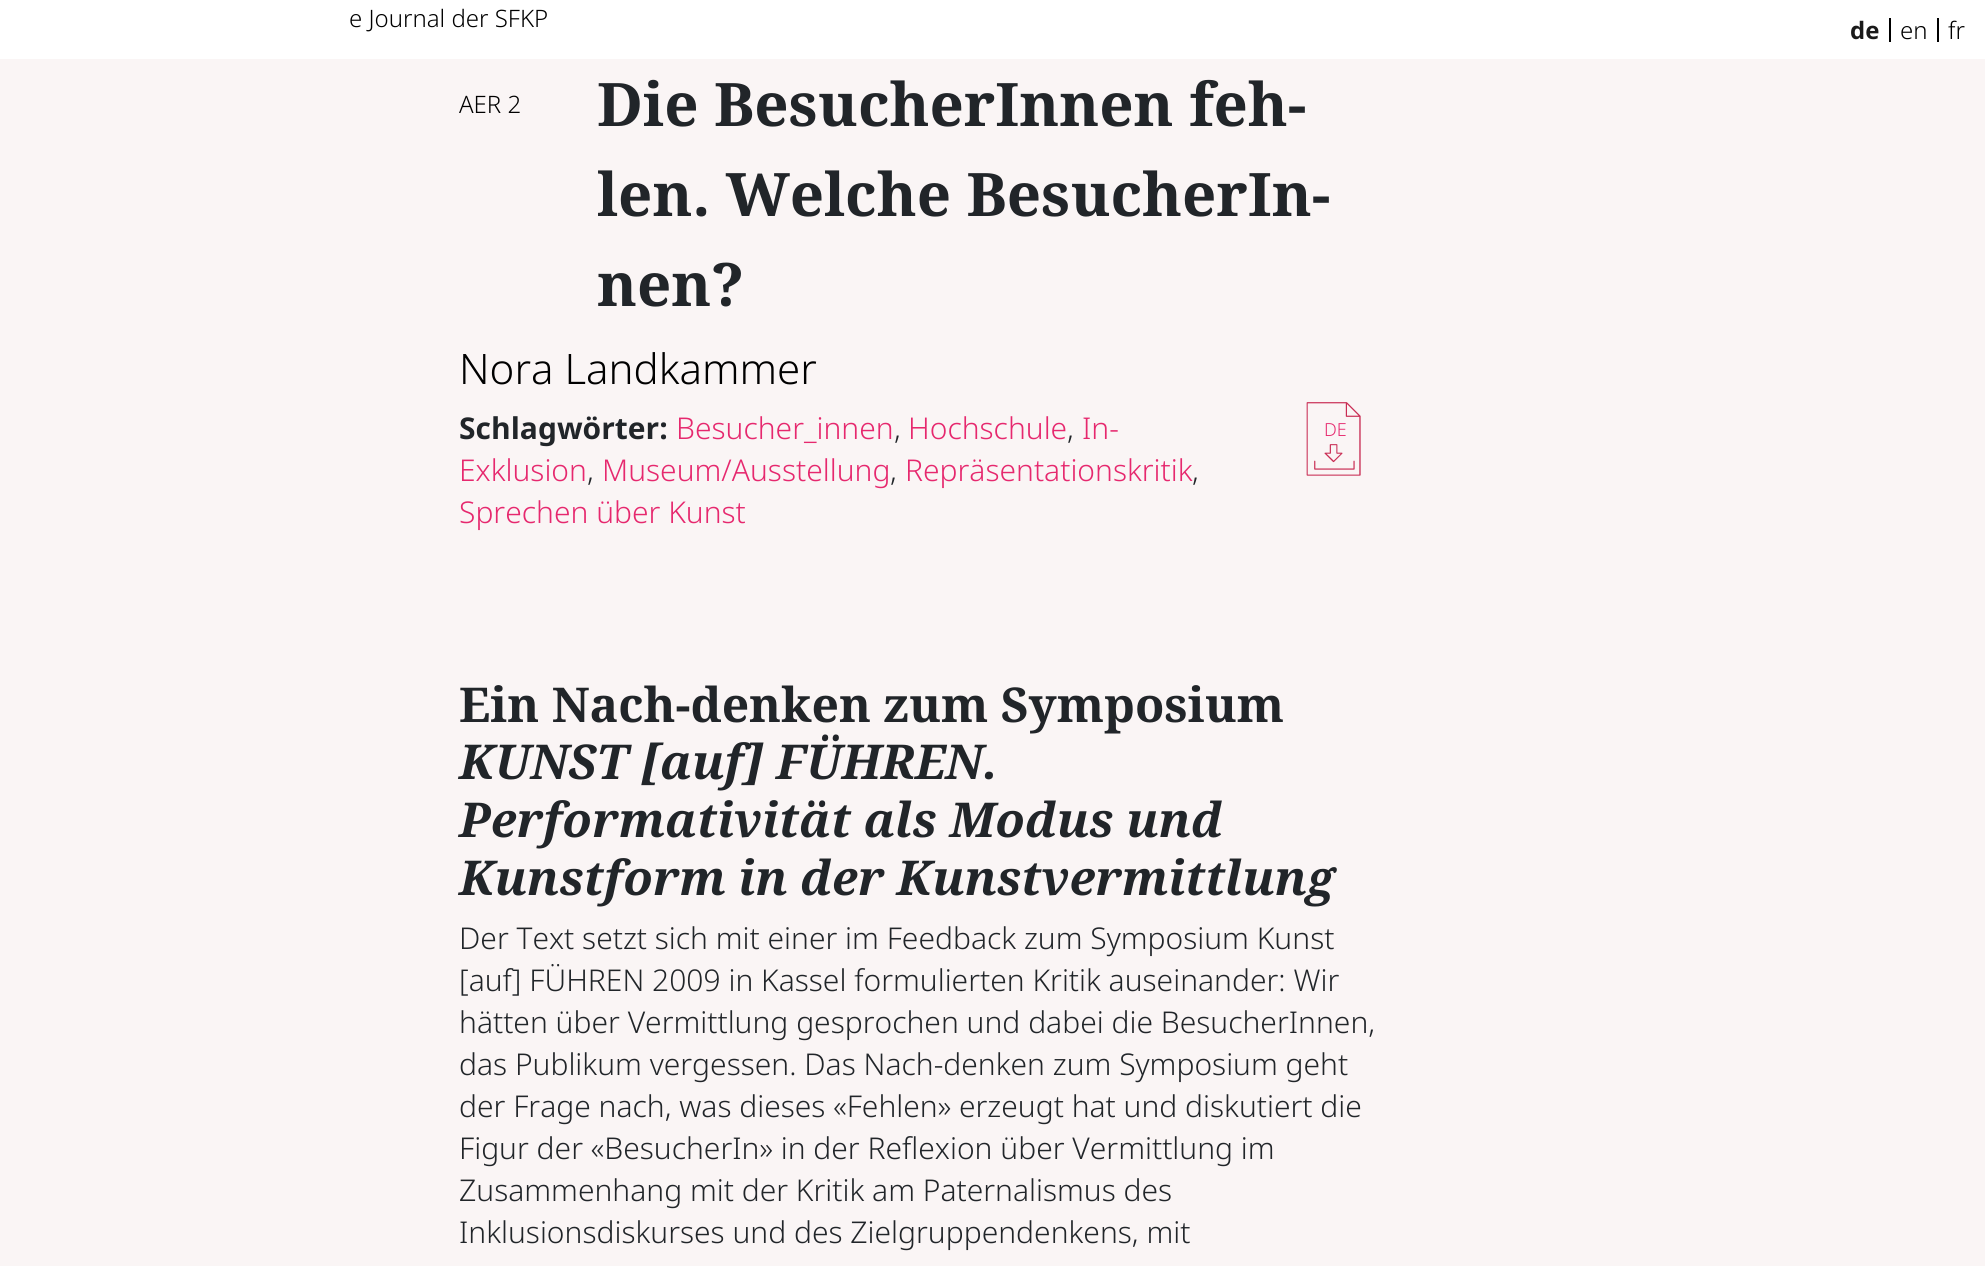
#include <cairo/cairo.h>
#include <math.h>
#include <stddef.h>


static void draw_image(cairo_t *cr, const char *path, double x, double y, double w, double h) {
  cairo_surface_t *image = cairo_image_surface_create_from_png(path);
  cairo_save(cr);
  cairo_set_source_surface(cr, image, x, y);
  cairo_rectangle(cr, x, y, w, h);
  cairo_fill(cr);
  cairo_restore(cr);
  cairo_surface_destroy(image);
}

static void draw(cairo_t *cr) {
  cairo_set_source_rgb(cr, 1, 1, 1);
  cairo_paint(cr);
  cairo_set_source_rgb(cr, 0, 0, 0);
  cairo_rectangle(cr, 1889, 18, 2, 24);
  cairo_fill(cr);
  cairo_rectangle(cr, 1937, 18, 2, 24);
  cairo_fill(cr);
  cairo_set_source_rgb(cr, 250 / 255.0, 245 / 255.0, 245 / 255.0);
  cairo_rectangle(cr, 0, 59, 1985, 1207);
  cairo_fill(cr);
  draw_image(cr, "images/1.png", 1306, 402, 55, 74);
  cairo_select_font_face(cr, "Noto Sans Light", CAIRO_FONT_SLANT_NORMAL, CAIRO_FONT_WEIGHT_NORMAL);
  cairo_set_font_size(cr, 24);
  cairo_set_source_rgb(cr, 0, 0, 0);
  cairo_move_to(cr, 349, 27);
  cairo_show_text(cr, "e Journal der SFKP");
  cairo_select_font_face(cr, "Noto Sans", CAIRO_FONT_SLANT_NORMAL, CAIRO_FONT_WEIGHT_BOLD);
  cairo_set_source_rgb(cr, 26 / 255.0, 26 / 255.0, 26 / 255.0);
  cairo_move_to(cr, 1850, 39);
  cairo_show_text(cr, "de");
  cairo_select_font_face(cr, "Noto Sans Light", CAIRO_FONT_SLANT_NORMAL, CAIRO_FONT_WEIGHT_NORMAL);
  cairo_set_source_rgb(cr, 0, 0, 0);
  cairo_move_to(cr, 1900, 39);
  cairo_show_text(cr, "en");
  cairo_move_to(cr, 1948, 39);
  cairo_show_text(cr, "fr");
  cairo_move_to(cr, 459, 113);
  cairo_show_text(cr, "AER 2");
  cairo_select_font_face(cr, "Noto Serif", CAIRO_FONT_SLANT_NORMAL, CAIRO_FONT_WEIGHT_BOLD);
  cairo_set_font_size(cr, 60);
  cairo_set_source_rgb(cr, 33 / 255.0, 37 / 255.0, 41 / 255.0);
  cairo_move_to(cr, 597, 126);
  cairo_show_text(cr, "Die BesucherInnen feh-");
  cairo_move_to(cr, 597, 216);
  cairo_show_text(cr, "len. Welche BesucherIn-");
  cairo_move_to(cr, 597, 306);
  cairo_show_text(cr, "nen?");
  cairo_select_font_face(cr, "Noto Sans Light", CAIRO_FONT_SLANT_NORMAL, CAIRO_FONT_WEIGHT_NORMAL);
  cairo_set_font_size(cr, 42);
  cairo_set_source_rgb(cr, 0, 0, 0);
  cairo_move_to(cr, 459, 384);
  cairo_show_text(cr, "Nora Landkammer");
  cairo_select_font_face(cr, "Noto Sans", CAIRO_FONT_SLANT_NORMAL, CAIRO_FONT_WEIGHT_BOLD);
  cairo_set_font_size(cr, 30);
  cairo_set_source_rgb(cr, 33 / 255.0, 37 / 255.0, 41 / 255.0);
  cairo_move_to(cr, 459, 439);
  cairo_show_text(cr, "Schlagwörter:");
  cairo_select_font_face(cr, "Noto Sans Light", CAIRO_FONT_SLANT_NORMAL, CAIRO_FONT_WEIGHT_NORMAL);
  cairo_set_source_rgb(cr, 230 / 255.0, 40 / 255.0, 110 / 255.0);
  cairo_move_to(cr, 676, 439);
  cairo_show_text(cr, "Besucher_innen");
  cairo_set_source_rgb(cr, 33 / 255.0, 37 / 255.0, 41 / 255.0);
  cairo_move_to(cr, 894, 439);
  cairo_show_text(cr, ",");
  cairo_set_source_rgb(cr, 230 / 255.0, 40 / 255.0, 110 / 255.0);
  cairo_move_to(cr, 908, 439);
  cairo_show_text(cr, "Hochschule");
  cairo_set_source_rgb(cr, 33 / 255.0, 37 / 255.0, 41 / 255.0);
  cairo_move_to(cr, 1067, 439);
  cairo_show_text(cr, ",");
  cairo_set_source_rgb(cr, 230 / 255.0, 40 / 255.0, 110 / 255.0);
  cairo_move_to(cr, 1082, 439);
  cairo_show_text(cr, "In-");
  cairo_move_to(cr, 459, 481);
  cairo_show_text(cr, "Exklusion");
  cairo_set_source_rgb(cr, 33 / 255.0, 37 / 255.0, 41 / 255.0);
  cairo_move_to(cr, 587, 481);
  cairo_show_text(cr, ",");
  cairo_set_source_rgb(cr, 230 / 255.0, 40 / 255.0, 110 / 255.0);
  cairo_move_to(cr, 602, 481);
  cairo_show_text(cr, "Museum/Ausstellung");
  cairo_set_source_rgb(cr, 33 / 255.0, 37 / 255.0, 41 / 255.0);
  cairo_move_to(cr, 890, 481);
  cairo_show_text(cr, ",");
  cairo_set_source_rgb(cr, 230 / 255.0, 40 / 255.0, 110 / 255.0);
  cairo_move_to(cr, 905, 481);
  cairo_show_text(cr, "Repräsentationskritik");
  cairo_set_source_rgb(cr, 33 / 255.0, 37 / 255.0, 41 / 255.0);
  cairo_move_to(cr, 1192, 481);
  cairo_show_text(cr, ",");
  cairo_set_source_rgb(cr, 230 / 255.0, 40 / 255.0, 110 / 255.0);
  cairo_move_to(cr, 459, 523);
  cairo_show_text(cr, "Sprechen über Kunst");
  cairo_set_font_size(cr, 18);
  cairo_move_to(cr, 1324, 436);
  cairo_show_text(cr, "DE");
  cairo_select_font_face(cr, "Noto Serif", CAIRO_FONT_SLANT_NORMAL, CAIRO_FONT_WEIGHT_BOLD);
  cairo_set_font_size(cr, 48);
  cairo_set_source_rgb(cr, 33 / 255.0, 37 / 255.0, 41 / 255.0);
  cairo_move_to(cr, 459, 722);
  cairo_show_text(cr, "Ein Nach-denken zum Symposium");
  cairo_select_font_face(cr, "Noto Serif", CAIRO_FONT_SLANT_ITALIC, CAIRO_FONT_WEIGHT_BOLD);
  cairo_move_to(cr, 459, 779);
  cairo_show_text(cr, "KUNST [auf] FÜHREN.");
  cairo_move_to(cr, 459, 837);
  cairo_show_text(cr, "Performativität als Modus und");
  cairo_move_to(cr, 459, 895);
  cairo_show_text(cr, "Kunstform in der Kunstvermittlung");
  cairo_select_font_face(cr, "Noto Sans Light", CAIRO_FONT_SLANT_NORMAL, CAIRO_FONT_WEIGHT_NORMAL);
  cairo_set_font_size(cr, 30);
  cairo_move_to(cr, 459, 949);
  cairo_show_text(cr, "Der Text setzt sich mit einer im Feedback zum Symposium Kunst");
  cairo_move_to(cr, 459, 991);
  cairo_show_text(cr, "[auf] FÜHREN 2009 in Kassel formulierten Kritik auseinander: Wir");
  cairo_move_to(cr, 459, 1033);
  cairo_show_text(cr, "hätten über Vermittlung gesprochen und dabei die BesucherInnen,");
  cairo_move_to(cr, 459, 1075);
  cairo_show_text(cr, "das Publikum vergessen. Das Nach-denken zum Symposium geht");
  cairo_move_to(cr, 459, 1117);
  cairo_show_text(cr, "der Frage nach, was dieses «Fehlen» erzeugt hat und diskutiert die");
  cairo_move_to(cr, 459, 1159);
  cairo_show_text(cr, "Figur der «BesucherIn» in der Reflexion über Vermittlung im");
  cairo_move_to(cr, 459, 1201);
  cairo_show_text(cr, "Zusammenhang mit der Kritik am Paternalismus des");
  cairo_move_to(cr, 459, 1243);
  cairo_show_text(cr, "Inklusionsdiskurses und des Zielgruppendenkens, mit");
}

int main(void) {
  cairo_surface_t *surface = cairo_image_surface_create(CAIRO_FORMAT_RGB24, 1985, 1266);
  cairo_t *cr = cairo_create(surface);
  cairo_font_options_t *options = cairo_font_options_create();
  cairo_font_options_set_hint_metrics(options, CAIRO_HINT_METRICS_OFF);
  cairo_font_options_set_hint_style(options, CAIRO_HINT_STYLE_NONE);
  cairo_set_font_options(cr, options);
  cairo_set_miter_limit(cr, 4);
  draw(cr);
  cairo_surface_write_to_png(surface, "out.png");
  cairo_font_options_destroy(options);
  cairo_destroy(cr);
  cairo_surface_destroy(surface);
  return 0;
}
